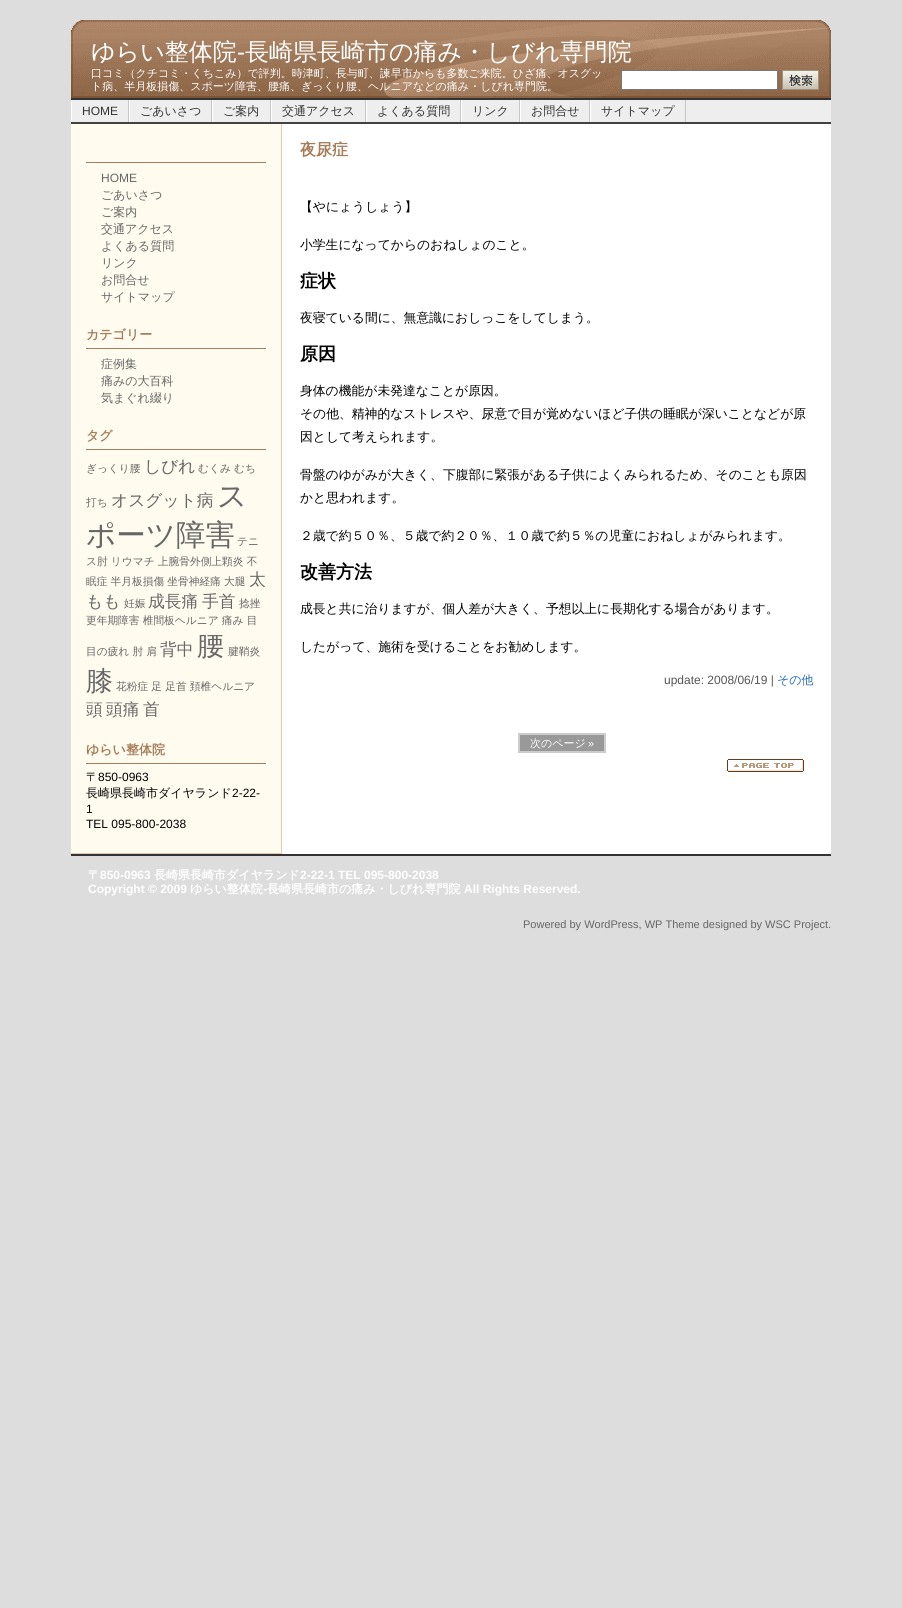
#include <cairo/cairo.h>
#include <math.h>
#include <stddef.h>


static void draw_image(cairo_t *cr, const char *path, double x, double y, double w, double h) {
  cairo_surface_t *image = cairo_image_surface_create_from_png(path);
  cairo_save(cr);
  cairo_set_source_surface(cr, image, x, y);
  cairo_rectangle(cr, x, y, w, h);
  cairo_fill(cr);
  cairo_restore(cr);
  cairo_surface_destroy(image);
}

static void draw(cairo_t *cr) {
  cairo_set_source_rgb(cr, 221 / 255.0, 221 / 255.0, 221 / 255.0);
  cairo_paint(cr);
  draw_image(cr, "images/1.png", 71, 20, 760, 78);
  cairo_set_source_rgb(cr, 51 / 255.0, 51 / 255.0, 51 / 255.0);
  cairo_rectangle(cr, 71, 98, 760, 2);
  cairo_fill(cr);
  cairo_set_source_rgb(cr, 1, 1, 1);
  cairo_rectangle(cr, 621.5, 70.5, 156, 19);
  cairo_fill_preserve(cr);
  cairo_set_source_rgb(cr, 119 / 255.0, 119 / 255.0, 119 / 255.0);
  cairo_set_line_width(cr, 1);
  cairo_stroke(cr);
  draw_image(cr, "images/2.png", 782, 70, 37, 20);
  cairo_set_source_rgb(cr, 238 / 255.0, 238 / 255.0, 238 / 255.0);
  cairo_rectangle(cr, 72, 100, 759, 22);
  cairo_fill(cr);
  cairo_set_source_rgb(cr, 66 / 255.0, 66 / 255.0, 66 / 255.0);
  cairo_rectangle(cr, 71, 122, 760, 2);
  cairo_fill(cr);
  cairo_set_source_rgb(cr, 199 / 255.0, 199 / 255.0, 199 / 255.0);
  cairo_rectangle(cr, 128, 100, 1, 22);
  cairo_fill(cr);
  cairo_set_source_rgb(cr, 1, 1, 1);
  cairo_rectangle(cr, 71, 100, 1, 22);
  cairo_fill(cr);
  cairo_set_source_rgb(cr, 199 / 255.0, 199 / 255.0, 199 / 255.0);
  cairo_rectangle(cr, 211, 100, 1, 22);
  cairo_fill(cr);
  cairo_set_source_rgb(cr, 1, 1, 1);
  cairo_rectangle(cr, 129, 100, 1, 22);
  cairo_fill(cr);
  cairo_set_source_rgb(cr, 199 / 255.0, 199 / 255.0, 199 / 255.0);
  cairo_rectangle(cr, 270, 100, 1, 22);
  cairo_fill(cr);
  cairo_set_source_rgb(cr, 1, 1, 1);
  cairo_rectangle(cr, 212, 100, 1, 22);
  cairo_fill(cr);
  cairo_set_source_rgb(cr, 199 / 255.0, 199 / 255.0, 199 / 255.0);
  cairo_rectangle(cr, 365, 100, 1, 22);
  cairo_fill(cr);
  cairo_set_source_rgb(cr, 1, 1, 1);
  cairo_rectangle(cr, 271, 100, 1, 22);
  cairo_fill(cr);
  cairo_set_source_rgb(cr, 199 / 255.0, 199 / 255.0, 199 / 255.0);
  cairo_rectangle(cr, 460, 100, 1, 22);
  cairo_fill(cr);
  cairo_set_source_rgb(cr, 1, 1, 1);
  cairo_rectangle(cr, 366, 100, 1, 22);
  cairo_fill(cr);
  cairo_set_source_rgb(cr, 199 / 255.0, 199 / 255.0, 199 / 255.0);
  cairo_rectangle(cr, 519, 100, 1, 22);
  cairo_fill(cr);
  cairo_set_source_rgb(cr, 1, 1, 1);
  cairo_rectangle(cr, 461, 100, 1, 22);
  cairo_fill(cr);
  cairo_set_source_rgb(cr, 199 / 255.0, 199 / 255.0, 199 / 255.0);
  cairo_rectangle(cr, 589, 100, 1, 22);
  cairo_fill(cr);
  cairo_set_source_rgb(cr, 1, 1, 1);
  cairo_rectangle(cr, 520, 100, 1, 22);
  cairo_fill(cr);
  cairo_set_source_rgb(cr, 199 / 255.0, 199 / 255.0, 199 / 255.0);
  cairo_rectangle(cr, 685, 100, 1, 22);
  cairo_fill(cr);
  cairo_set_source_rgb(cr, 1, 1, 1);
  cairo_rectangle(cr, 590, 100, 1, 22);
  cairo_fill(cr);
  cairo_rectangle(cr, 282, 124, 549, 730);
  cairo_fill(cr);
  cairo_set_source_rgb(cr, 1, 251 / 255.0, 239 / 255.0);
  cairo_rectangle(cr, 71, 124, 210, 729);
  cairo_fill(cr);
  cairo_set_source_rgb(cr, 231 / 255.0, 199 / 255.0, 173 / 255.0);
  cairo_rectangle(cr, 281, 124, 1, 730);
  cairo_fill(cr);
  cairo_rectangle(cr, 71, 853, 211, 1);
  cairo_fill(cr);
  cairo_set_source_rgb(cr, 165 / 255.0, 125 / 255.0, 90 / 255.0);
  cairo_rectangle(cr, 86, 162, 180, 1);
  cairo_fill(cr);
  cairo_rectangle(cr, 86, 348, 180, 1);
  cairo_fill(cr);
  cairo_rectangle(cr, 86, 449, 180, 1);
  cairo_fill(cr);
  cairo_rectangle(cr, 86, 763, 180, 1);
  cairo_fill(cr);
  cairo_set_source_rgb(cr, 153 / 255.0, 153 / 255.0, 153 / 255.0);
  cairo_rectangle(cr, 519, 734, 86, 18);
  cairo_fill_preserve(cr);
  cairo_set_source_rgb(cr, 204 / 255.0, 204 / 255.0, 204 / 255.0);
  cairo_set_line_width(cr, 2);
  cairo_stroke(cr);
  draw_image(cr, "images/3.png", 727, 759, 77, 13);
  cairo_set_source_rgb(cr, 51 / 255.0, 51 / 255.0, 51 / 255.0);
  cairo_rectangle(cr, 71, 854, 760, 2);
  cairo_fill(cr);
  cairo_select_font_face(cr, "WenQuanYi Zen Hei Medium", CAIRO_FONT_SLANT_NORMAL, CAIRO_FONT_WEIGHT_NORMAL);
  cairo_set_font_size(cr, 24);
  cairo_set_source_rgb(cr, 1, 1, 1);
  cairo_move_to(cr, 91, 60);
  cairo_show_text(cr, "ゆらい整体院");
  cairo_select_font_face(cr, "Liberation Sans", CAIRO_FONT_SLANT_NORMAL, CAIRO_FONT_WEIGHT_NORMAL);
  cairo_move_to(cr, 237, 60);
  cairo_show_text(cr, "-");
  cairo_select_font_face(cr, "WenQuanYi Zen Hei Medium", CAIRO_FONT_SLANT_NORMAL, CAIRO_FONT_WEIGHT_NORMAL);
  cairo_move_to(cr, 245, 60);
  cairo_show_text(cr, "長崎県長崎市の痛み・しびれ専門院");
  cairo_set_font_size(cr, 11);
  cairo_move_to(cr, 91, 77);
  cairo_show_text(cr, "口コミ（クチコミ・くちこみ）で評判。時津町、長与町、諫早市からも多数ご来院。ひざ痛、オスグッ");
  cairo_move_to(cr, 91, 90);
  cairo_show_text(cr, "ト病、半月板損傷、スポーツ障害、腰痛、ぎっくり腰、ヘルニアなどの痛み・しびれ専門院。");
  cairo_select_font_face(cr, "Liberation Sans", CAIRO_FONT_SLANT_NORMAL, CAIRO_FONT_WEIGHT_NORMAL);
  cairo_set_font_size(cr, 12);
  cairo_set_source_rgb(cr, 51 / 255.0, 51 / 255.0, 51 / 255.0);
  cairo_move_to(cr, 82, 115);
  cairo_show_text(cr, "HOME");
  cairo_select_font_face(cr, "WenQuanYi Zen Hei Medium", CAIRO_FONT_SLANT_NORMAL, CAIRO_FONT_WEIGHT_NORMAL);
  cairo_move_to(cr, 140, 115);
  cairo_show_text(cr, "ごあいさつ");
  cairo_move_to(cr, 223, 115);
  cairo_show_text(cr, "ご案内");
  cairo_move_to(cr, 282, 115);
  cairo_show_text(cr, "交通アクセス");
  cairo_move_to(cr, 377, 115);
  cairo_show_text(cr, "よくある質問");
  cairo_move_to(cr, 472, 115);
  cairo_show_text(cr, "リンク");
  cairo_move_to(cr, 531, 115);
  cairo_show_text(cr, "お問合せ");
  cairo_move_to(cr, 601, 115);
  cairo_show_text(cr, "サイトマップ");
  cairo_select_font_face(cr, "Liberation Sans", CAIRO_FONT_SLANT_NORMAL, CAIRO_FONT_WEIGHT_NORMAL);
  cairo_set_source_rgb(cr, 102 / 255.0, 102 / 255.0, 102 / 255.0);
  cairo_move_to(cr, 101, 182);
  cairo_show_text(cr, "HOME");
  cairo_select_font_face(cr, "WenQuanYi Zen Hei Medium", CAIRO_FONT_SLANT_NORMAL, CAIRO_FONT_WEIGHT_NORMAL);
  cairo_move_to(cr, 101, 199);
  cairo_show_text(cr, "ごあいさつ");
  cairo_move_to(cr, 101, 216);
  cairo_show_text(cr, "ご案内");
  cairo_move_to(cr, 101, 233);
  cairo_show_text(cr, "交通アクセス");
  cairo_move_to(cr, 101, 250);
  cairo_show_text(cr, "よくある質問");
  cairo_move_to(cr, 101, 267);
  cairo_show_text(cr, "リンク");
  cairo_move_to(cr, 101, 284);
  cairo_show_text(cr, "お問合せ");
  cairo_move_to(cr, 101, 301);
  cairo_show_text(cr, "サイトマップ");
  cairo_select_font_face(cr, "WenQuanYi Zen Hei", CAIRO_FONT_SLANT_NORMAL, CAIRO_FONT_WEIGHT_BOLD);
  cairo_set_font_size(cr, 13);
  cairo_set_source_rgb(cr, 165 / 255.0, 125 / 255.0, 90 / 255.0);
  cairo_move_to(cr, 86, 339);
  cairo_show_text(cr, "カテゴリー");
  cairo_select_font_face(cr, "WenQuanYi Zen Hei Medium", CAIRO_FONT_SLANT_NORMAL, CAIRO_FONT_WEIGHT_NORMAL);
  cairo_set_font_size(cr, 12);
  cairo_set_source_rgb(cr, 102 / 255.0, 102 / 255.0, 102 / 255.0);
  cairo_move_to(cr, 101, 368);
  cairo_show_text(cr, "症例集");
  cairo_move_to(cr, 101, 385);
  cairo_show_text(cr, "痛みの大百科");
  cairo_move_to(cr, 101, 402);
  cairo_show_text(cr, "気まぐれ綴り");
  cairo_select_font_face(cr, "WenQuanYi Zen Hei", CAIRO_FONT_SLANT_NORMAL, CAIRO_FONT_WEIGHT_BOLD);
  cairo_set_font_size(cr, 13);
  cairo_set_source_rgb(cr, 165 / 255.0, 125 / 255.0, 90 / 255.0);
  cairo_move_to(cr, 86, 440);
  cairo_show_text(cr, "タグ");
  cairo_select_font_face(cr, "WenQuanYi Zen Hei Medium", CAIRO_FONT_SLANT_NORMAL, CAIRO_FONT_WEIGHT_NORMAL);
  cairo_set_font_size(cr, 10.7);
  cairo_set_source_rgb(cr, 102 / 255.0, 102 / 255.0, 102 / 255.0);
  cairo_move_to(cr, 86, 472);
  cairo_show_text(cr, "ぎっくり腰");
  cairo_set_font_size(cr, 16.75);
  cairo_move_to(cr, 144, 472);
  cairo_show_text(cr, "しびれ");
  cairo_set_font_size(cr, 10.7);
  cairo_move_to(cr, 198, 472);
  cairo_show_text(cr, "むくみ むち");
  cairo_move_to(cr, 86, 506);
  cairo_show_text(cr, "打ち");
  cairo_set_font_size(cr, 16.75);
  cairo_move_to(cr, 111, 506);
  cairo_show_text(cr, "オスグット病");
  cairo_set_font_size(cr, 29.5);
  cairo_move_to(cr, 217, 506);
  cairo_show_text(cr, "ス");
  cairo_move_to(cr, 86, 545);
  cairo_show_text(cr, "ポーツ障害");
  cairo_set_font_size(cr, 10.7);
  cairo_move_to(cr, 237, 545);
  cairo_show_text(cr, "テニ");
  cairo_move_to(cr, 86, 565);
  cairo_show_text(cr, "ス肘 リウマチ 上腕骨外側上顆炎 不");
  cairo_move_to(cr, 86, 585);
  cairo_show_text(cr, "眠症 半月板損傷 坐骨神経痛 大腿");
  cairo_set_font_size(cr, 16.75);
  cairo_move_to(cr, 249, 585);
  cairo_show_text(cr, "太");
  cairo_move_to(cr, 86, 607);
  cairo_show_text(cr, "もも");
  cairo_set_font_size(cr, 10.7);
  cairo_move_to(cr, 124, 607);
  cairo_show_text(cr, "妊娠");
  cairo_set_font_size(cr, 16.75);
  cairo_move_to(cr, 148, 607);
  cairo_show_text(cr, "成長痛");
  cairo_move_to(cr, 202, 607);
  cairo_show_text(cr, "手首");
  cairo_set_font_size(cr, 10.7);
  cairo_move_to(cr, 239, 607);
  cairo_show_text(cr, "捻挫");
  cairo_move_to(cr, 86, 624);
  cairo_show_text(cr, "更年期障害 椎間板ヘルニア 痛み 目");
  cairo_move_to(cr, 86, 655);
  cairo_show_text(cr, "目の疲れ 肘 肩");
  cairo_set_font_size(cr, 16.75);
  cairo_move_to(cr, 160, 655);
  cairo_show_text(cr, "背中");
  cairo_set_font_size(cr, 27);
  cairo_move_to(cr, 197, 655);
  cairo_show_text(cr, "腰");
  cairo_set_font_size(cr, 10.7);
  cairo_move_to(cr, 228, 655);
  cairo_show_text(cr, "腱鞘炎");
  cairo_set_font_size(cr, 27);
  cairo_move_to(cr, 86, 690);
  cairo_show_text(cr, "膝");
  cairo_set_font_size(cr, 10.7);
  cairo_move_to(cr, 116, 690);
  cairo_show_text(cr, "花粉症 足 足首 頚椎ヘルニア");
  cairo_set_font_size(cr, 16.75);
  cairo_move_to(cr, 86, 715);
  cairo_show_text(cr, "頭");
  cairo_move_to(cr, 106, 715);
  cairo_show_text(cr, "頭痛");
  cairo_move_to(cr, 143, 715);
  cairo_show_text(cr, "首");
  cairo_select_font_face(cr, "WenQuanYi Zen Hei", CAIRO_FONT_SLANT_NORMAL, CAIRO_FONT_WEIGHT_BOLD);
  cairo_set_font_size(cr, 13);
  cairo_set_source_rgb(cr, 165 / 255.0, 125 / 255.0, 90 / 255.0);
  cairo_move_to(cr, 86, 754);
  cairo_show_text(cr, "ゆらい整体院");
  cairo_select_font_face(cr, "WenQuanYi Zen Hei Medium", CAIRO_FONT_SLANT_NORMAL, CAIRO_FONT_WEIGHT_NORMAL);
  cairo_set_font_size(cr, 12);
  cairo_set_source_rgb(cr, 0, 0, 0);
  cairo_move_to(cr, 86, 781);
  cairo_show_text(cr, "〒");
  cairo_select_font_face(cr, "Liberation Sans", CAIRO_FONT_SLANT_NORMAL, CAIRO_FONT_WEIGHT_NORMAL);
  cairo_move_to(cr, 98, 781);
  cairo_show_text(cr, "850-0963");
  cairo_select_font_face(cr, "WenQuanYi Zen Hei Medium", CAIRO_FONT_SLANT_NORMAL, CAIRO_FONT_WEIGHT_NORMAL);
  cairo_move_to(cr, 86, 797);
  cairo_show_text(cr, "長崎県長崎市ダイヤランド");
  cairo_select_font_face(cr, "Liberation Sans", CAIRO_FONT_SLANT_NORMAL, CAIRO_FONT_WEIGHT_NORMAL);
  cairo_move_to(cr, 232, 797);
  cairo_show_text(cr, "2-22-");
  cairo_move_to(cr, 86, 813);
  cairo_show_text(cr, "1");
  cairo_move_to(cr, 86, 828);
  cairo_show_text(cr, "TEL 095-800-2038");
  cairo_select_font_face(cr, "WenQuanYi Zen Hei", CAIRO_FONT_SLANT_NORMAL, CAIRO_FONT_WEIGHT_BOLD);
  cairo_set_font_size(cr, 16);
  cairo_set_source_rgb(cr, 165 / 255.0, 125 / 255.0, 90 / 255.0);
  cairo_move_to(cr, 300, 155);
  cairo_show_text(cr, "夜尿症");
  cairo_select_font_face(cr, "WenQuanYi Zen Hei Medium", CAIRO_FONT_SLANT_NORMAL, CAIRO_FONT_WEIGHT_NORMAL);
  cairo_set_font_size(cr, 12.8);
  cairo_set_source_rgb(cr, 0, 0, 0);
  cairo_move_to(cr, 300, 211);
  cairo_show_text(cr, "【やにょうしょう】");
  cairo_move_to(cr, 300, 249);
  cairo_show_text(cr, "小学生になってからのおねしょのこと。");
  cairo_select_font_face(cr, "WenQuanYi Zen Hei", CAIRO_FONT_SLANT_NORMAL, CAIRO_FONT_WEIGHT_BOLD);
  cairo_set_font_size(cr, 18);
  cairo_move_to(cr, 300, 287);
  cairo_show_text(cr, "症状");
  cairo_select_font_face(cr, "WenQuanYi Zen Hei Medium", CAIRO_FONT_SLANT_NORMAL, CAIRO_FONT_WEIGHT_NORMAL);
  cairo_set_font_size(cr, 12.8);
  cairo_move_to(cr, 300, 322);
  cairo_show_text(cr, "夜寝ている間に、無意識におしっこをしてしまう。");
  cairo_select_font_face(cr, "WenQuanYi Zen Hei", CAIRO_FONT_SLANT_NORMAL, CAIRO_FONT_WEIGHT_BOLD);
  cairo_set_font_size(cr, 18);
  cairo_move_to(cr, 300, 360);
  cairo_show_text(cr, "原因");
  cairo_select_font_face(cr, "WenQuanYi Zen Hei Medium", CAIRO_FONT_SLANT_NORMAL, CAIRO_FONT_WEIGHT_NORMAL);
  cairo_set_font_size(cr, 12.8);
  cairo_move_to(cr, 300, 395);
  cairo_show_text(cr, "身体の機能が未発達なことが原因。");
  cairo_move_to(cr, 300, 418);
  cairo_show_text(cr, "その他、精神的なストレスや、尿意で目が覚めないほど子供の睡眠が深いことなどが原");
  cairo_move_to(cr, 300, 441);
  cairo_show_text(cr, "因として考えられます。");
  cairo_move_to(cr, 300, 479);
  cairo_show_text(cr, "骨盤のゆがみが大きく、下腹部に緊張がある子供によくみられるため、そのことも原因");
  cairo_move_to(cr, 300, 502);
  cairo_show_text(cr, "かと思われます。");
  cairo_move_to(cr, 300, 540);
  cairo_show_text(cr, "２歳で約５０％、５歳で約２０％、１０歳で約５％の児童におねしょがみられます。");
  cairo_select_font_face(cr, "WenQuanYi Zen Hei", CAIRO_FONT_SLANT_NORMAL, CAIRO_FONT_WEIGHT_BOLD);
  cairo_set_font_size(cr, 18);
  cairo_move_to(cr, 300, 578);
  cairo_show_text(cr, "改善方法");
  cairo_select_font_face(cr, "WenQuanYi Zen Hei Medium", CAIRO_FONT_SLANT_NORMAL, CAIRO_FONT_WEIGHT_NORMAL);
  cairo_set_font_size(cr, 12.8);
  cairo_move_to(cr, 300, 613);
  cairo_show_text(cr, "成長と共に治りますが、個人差が大きく、予想以上に長期化する場合があります。");
  cairo_move_to(cr, 300, 651);
  cairo_show_text(cr, "したがって、施術を受けることをお勧めします。");
  cairo_select_font_face(cr, "Liberation Sans", CAIRO_FONT_SLANT_NORMAL, CAIRO_FONT_WEIGHT_NORMAL);
  cairo_set_font_size(cr, 12);
  cairo_set_source_rgb(cr, 85 / 255.0, 85 / 255.0, 85 / 255.0);
  cairo_move_to(cr, 664, 684);
  cairo_show_text(cr, "update: 2008/06/19 |");
  cairo_select_font_face(cr, "WenQuanYi Zen Hei Medium", CAIRO_FONT_SLANT_NORMAL, CAIRO_FONT_WEIGHT_NORMAL);
  cairo_set_source_rgb(cr, 34 / 255.0, 109 / 255.0, 185 / 255.0);
  cairo_move_to(cr, 777, 684);
  cairo_show_text(cr, "その他");
  cairo_set_font_size(cr, 11);
  cairo_set_source_rgb(cr, 1, 1, 1);
  cairo_move_to(cr, 530, 747);
  cairo_show_text(cr, "次のページ");
  cairo_select_font_face(cr, "Liberation Sans", CAIRO_FONT_SLANT_NORMAL, CAIRO_FONT_WEIGHT_NORMAL);
  cairo_move_to(cr, 588, 747);
  cairo_show_text(cr, "»");
  cairo_select_font_face(cr, "WenQuanYi Zen Hei", CAIRO_FONT_SLANT_NORMAL, CAIRO_FONT_WEIGHT_BOLD);
  cairo_set_font_size(cr, 12);
  cairo_move_to(cr, 88, 879);
  cairo_show_text(cr, "〒");
  cairo_select_font_face(cr, "Liberation Sans", CAIRO_FONT_SLANT_NORMAL, CAIRO_FONT_WEIGHT_BOLD);
  cairo_move_to(cr, 100, 879);
  cairo_show_text(cr, "850-0963");
  cairo_select_font_face(cr, "WenQuanYi Zen Hei", CAIRO_FONT_SLANT_NORMAL, CAIRO_FONT_WEIGHT_BOLD);
  cairo_move_to(cr, 154, 879);
  cairo_show_text(cr, "長崎県長崎市ダイヤランド");
  cairo_select_font_face(cr, "Liberation Sans", CAIRO_FONT_SLANT_NORMAL, CAIRO_FONT_WEIGHT_BOLD);
  cairo_move_to(cr, 300, 879);
  cairo_show_text(cr, "2-22-1 TEL 095-800-2038");
  cairo_move_to(cr, 88, 893);
  cairo_show_text(cr, "Copyright © 2009");
  cairo_select_font_face(cr, "WenQuanYi Zen Hei", CAIRO_FONT_SLANT_NORMAL, CAIRO_FONT_WEIGHT_BOLD);
  cairo_move_to(cr, 190, 893);
  cairo_show_text(cr, "ゆらい整体院");
  cairo_select_font_face(cr, "Liberation Sans", CAIRO_FONT_SLANT_NORMAL, CAIRO_FONT_WEIGHT_BOLD);
  cairo_move_to(cr, 263, 893);
  cairo_show_text(cr, "-");
  cairo_select_font_face(cr, "WenQuanYi Zen Hei", CAIRO_FONT_SLANT_NORMAL, CAIRO_FONT_WEIGHT_BOLD);
  cairo_move_to(cr, 267, 893);
  cairo_show_text(cr, "長崎県長崎市の痛み・しびれ専門院");
  cairo_select_font_face(cr, "Liberation Sans", CAIRO_FONT_SLANT_NORMAL, CAIRO_FONT_WEIGHT_BOLD);
  cairo_move_to(cr, 464, 893);
  cairo_show_text(cr, "All Rights Reserved.");
  cairo_select_font_face(cr, "Liberation Sans", CAIRO_FONT_SLANT_NORMAL, CAIRO_FONT_WEIGHT_NORMAL);
  cairo_set_font_size(cr, 11);
  cairo_set_source_rgb(cr, 102 / 255.0, 102 / 255.0, 102 / 255.0);
  cairo_move_to(cr, 523, 928);
  cairo_show_text(cr, "Powered by WordPress, WP Theme designed by WSC Project.");
}

int main(void) {
  cairo_surface_t *surface = cairo_image_surface_create(CAIRO_FORMAT_RGB24, 902, 1608);
  cairo_t *cr = cairo_create(surface);
  cairo_font_options_t *options = cairo_font_options_create();
  cairo_font_options_set_hint_metrics(options, CAIRO_HINT_METRICS_OFF);
  cairo_font_options_set_hint_style(options, CAIRO_HINT_STYLE_NONE);
  cairo_set_font_options(cr, options);
  cairo_set_miter_limit(cr, 4);
  draw(cr);
  cairo_surface_write_to_png(surface, "out.png");
  cairo_font_options_destroy(options);
  cairo_destroy(cr);
  cairo_surface_destroy(surface);
  return 0;
}
